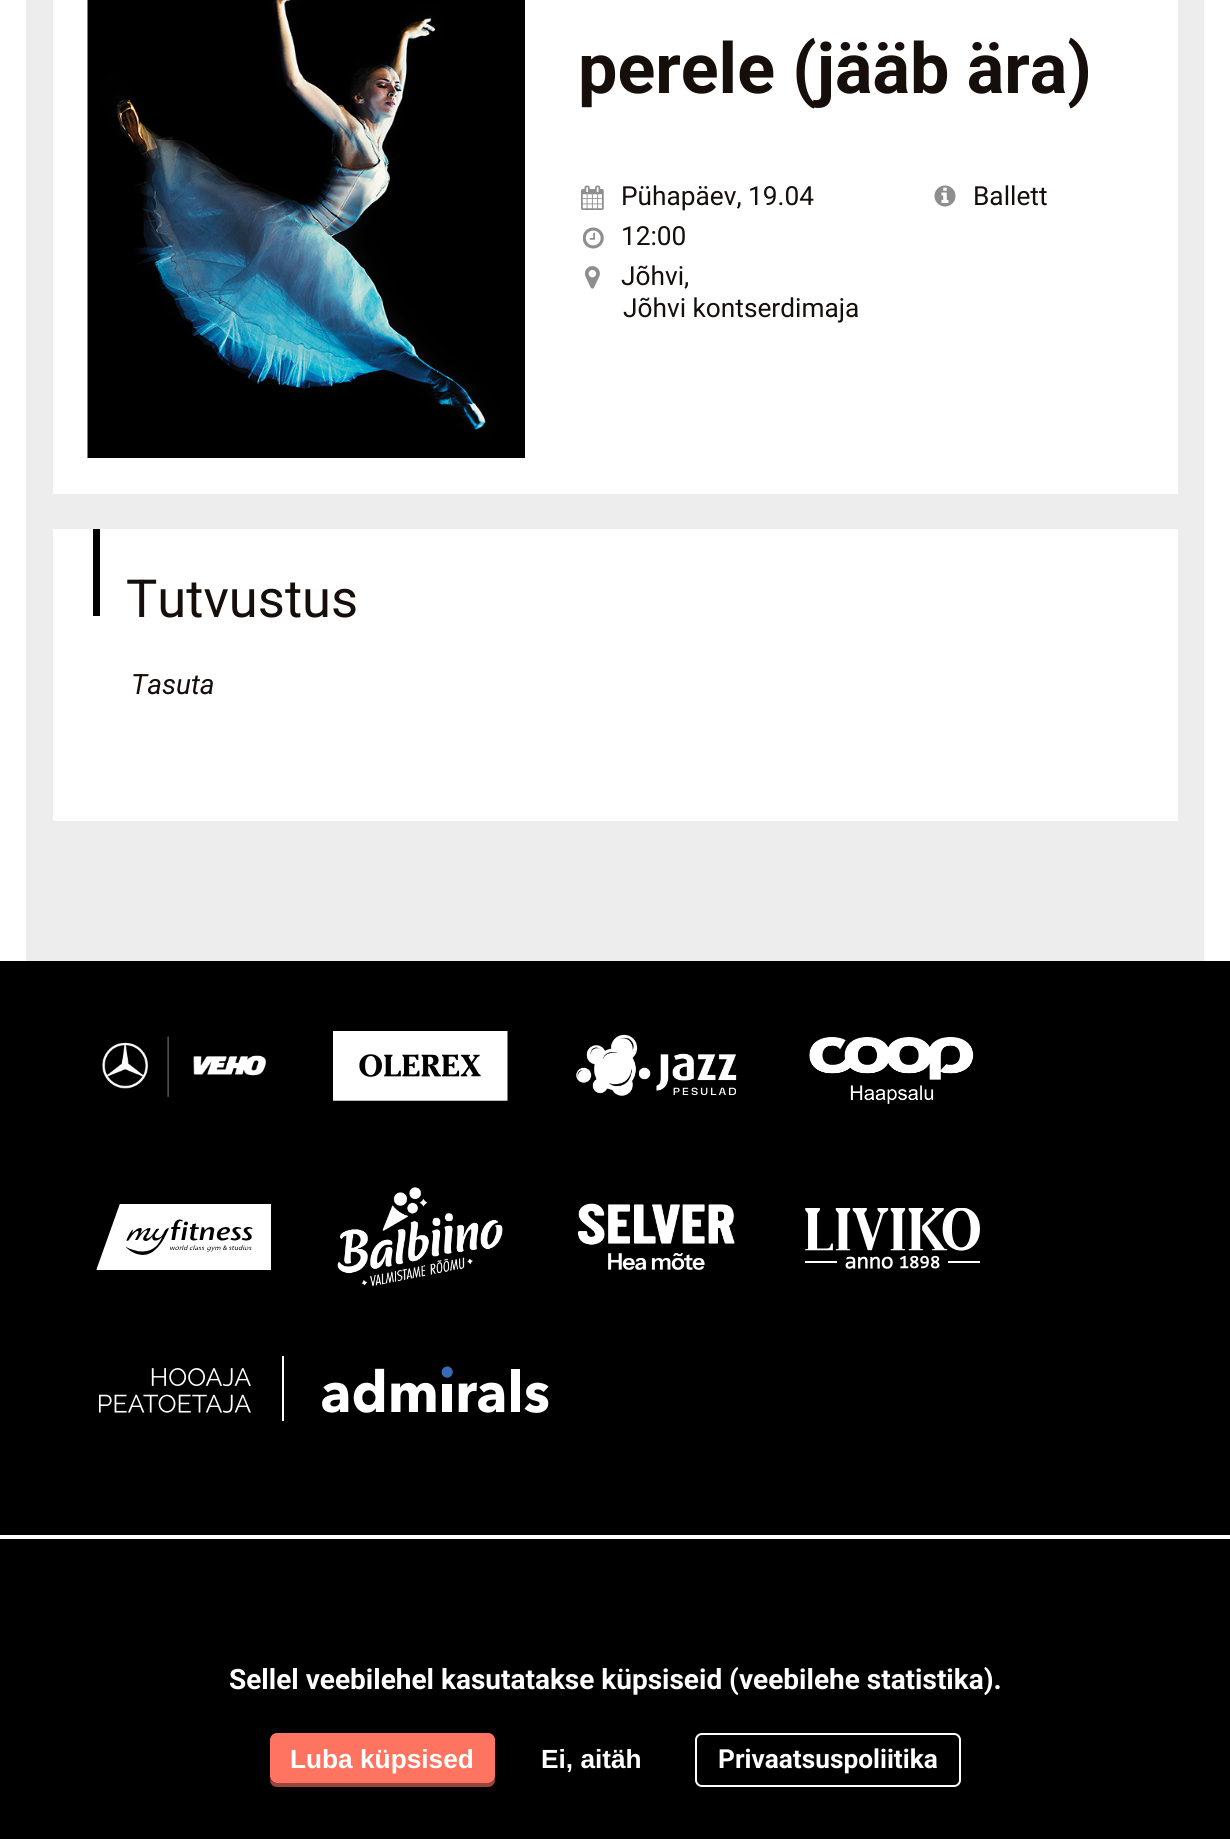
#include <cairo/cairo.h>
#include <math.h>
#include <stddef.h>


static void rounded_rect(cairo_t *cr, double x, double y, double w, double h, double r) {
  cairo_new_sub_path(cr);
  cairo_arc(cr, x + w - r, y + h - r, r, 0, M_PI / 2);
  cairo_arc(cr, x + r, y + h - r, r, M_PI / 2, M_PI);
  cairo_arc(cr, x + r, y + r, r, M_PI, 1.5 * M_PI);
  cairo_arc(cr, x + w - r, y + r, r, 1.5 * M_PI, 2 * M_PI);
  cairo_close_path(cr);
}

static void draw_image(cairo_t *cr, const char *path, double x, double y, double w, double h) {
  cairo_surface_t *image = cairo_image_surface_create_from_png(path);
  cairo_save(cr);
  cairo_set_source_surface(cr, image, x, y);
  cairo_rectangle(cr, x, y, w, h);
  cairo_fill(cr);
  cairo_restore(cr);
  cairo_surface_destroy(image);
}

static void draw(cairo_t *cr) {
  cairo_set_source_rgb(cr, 1, 1, 1);
  cairo_paint(cr);
  cairo_set_source_rgb(cr, 237 / 255.0, 237 / 255.0, 237 / 255.0);
  cairo_rectangle(cr, 26, 0, 1178, 961);
  cairo_fill(cr);
  cairo_set_source_rgb(cr, 1, 1, 1);
  cairo_rectangle(cr, 53, 0, 1125, 494);
  cairo_fill(cr);
  draw_image(cr, "images/1.png", 87, 0, 438, 458);
  draw_image(cr, "images/2.png", 581, 185, 23, 25);
  draw_image(cr, "images/3.png", 583, 227, 21, 22);
  draw_image(cr, "images/4.png", 584, 266, 16, 23);
  draw_image(cr, "images/5.png", 934, 185, 22, 22);
  cairo_rectangle(cr, 53, 529, 1125, 292);
  cairo_fill(cr);
  cairo_set_source_rgb(cr, 0, 0, 0);
  cairo_rectangle(cr, 93, 529, 7, 87);
  cairo_fill(cr);
  cairo_rectangle(cr, 0, 961, 1230, 574);
  cairo_fill(cr);
  draw_image(cr, "images/6.png", 102, 1036, 165, 61);
  draw_image(cr, "images/7.png", 333, 1031, 175, 70);
  draw_image(cr, "images/8.png", 576, 1034, 161, 62);
  draw_image(cr, "images/9.png", 809, 1037, 165, 67);
  draw_image(cr, "images/10.png", 96, 1204, 175, 66);
  draw_image(cr, "images/11.png", 337, 1187, 166, 100);
  draw_image(cr, "images/12.png", 577, 1203, 158, 67);
  draw_image(cr, "images/13.png", 805, 1208, 175, 61);
  draw_image(cr, "images/14.png", 99, 1356, 450, 65);
  cairo_rectangle(cr, 0, 1539, 1230, 300);
  cairo_fill(cr);
  cairo_set_source_rgb(cr, 153 / 255.0, 69 / 255.0, 58 / 255.0);
  cairo_new_path(cr);
  cairo_move_to(cr, 270, 1779);
  cairo_line_to(cr, 270, 1780);
  cairo_curve_to(cr, 270, 1784, 273, 1787, 277, 1787);
  cairo_line_to(cr, 488, 1787);
  cairo_curve_to(cr, 492, 1787, 495, 1784, 495, 1780);
  cairo_line_to(cr, 495, 1778);
  cairo_curve_to(cr, 494, 1781, 491, 1783, 488, 1783);
  cairo_line_to(cr, 276, 1783);
  cairo_curve_to(cr, 274, 1783, 271, 1781, 270, 1779);
  cairo_close_path(cr);
  cairo_fill(cr);
  cairo_set_source_rgb(cr, 1, 115 / 255.0, 97 / 255.0);
  rounded_rect(cr, 270, 1733, 225, 50, 7);
  cairo_fill(cr);
  rounded_rect(cr, 696, 1734, 264, 52, 6);
  cairo_set_source_rgb(cr, 1, 1, 1);
  cairo_stroke(cr);
  cairo_select_font_face(cr, "Roboto", CAIRO_FONT_SLANT_NORMAL, CAIRO_FONT_WEIGHT_BOLD);
  cairo_set_font_size(cr, 70);
  cairo_set_source_rgb(cr, 21 / 255.0, 14 / 255.0, 11 / 255.0);
  cairo_move_to(cr, 578, 93);
  cairo_show_text(cr, "perele (jääb ära)");
  cairo_select_font_face(cr, "Roboto", CAIRO_FONT_SLANT_NORMAL, CAIRO_FONT_WEIGHT_NORMAL);
  cairo_set_font_size(cr, 26.25);
  cairo_move_to(cr, 621, 205);
  cairo_show_text(cr, "Pühapäev, 19.04");
  cairo_move_to(cr, 621, 245);
  cairo_show_text(cr, "12:00");
  cairo_move_to(cr, 621, 285);
  cairo_show_text(cr, "Jõhvi,");
  cairo_move_to(cr, 623, 317);
  cairo_show_text(cr, "Jõhvi kontserdimaja");
  cairo_move_to(cr, 973, 205);
  cairo_show_text(cr, "Ballett");
  cairo_set_font_size(cr, 52.5);
  cairo_move_to(cr, 126, 617);
  cairo_show_text(cr, "Tutvustus");
  cairo_select_font_face(cr, "Roboto", CAIRO_FONT_SLANT_ITALIC, CAIRO_FONT_WEIGHT_NORMAL);
  cairo_set_font_size(cr, 28);
  cairo_move_to(cr, 131, 694);
  cairo_show_text(cr, "Tasuta");
  cairo_select_font_face(cr, "Roboto", CAIRO_FONT_SLANT_NORMAL, CAIRO_FONT_WEIGHT_BOLD);
  cairo_set_source_rgb(cr, 1, 1, 1);
  cairo_move_to(cr, 229, 1689);
  cairo_show_text(cr, "Sellel veebilehel kasutatakse küpsiseid (veebilehe statistika).");
  cairo_select_font_face(cr, "Liberation Sans", CAIRO_FONT_SLANT_NORMAL, CAIRO_FONT_WEIGHT_BOLD);
  cairo_set_font_size(cr, 26.25);
  cairo_move_to(cr, 290, 1768);
  cairo_show_text(cr, "Luba küpsised");
  cairo_move_to(cr, 541, 1768);
  cairo_show_text(cr, "Ei, aitäh");
  cairo_select_font_face(cr, "Roboto", CAIRO_FONT_SLANT_NORMAL, CAIRO_FONT_WEIGHT_BOLD);
  cairo_move_to(cr, 718, 1768);
  cairo_show_text(cr, "Privaatsuspoliitika");
}

int main(void) {
  cairo_surface_t *surface = cairo_image_surface_create(CAIRO_FORMAT_RGB24, 1230, 1839);
  cairo_t *cr = cairo_create(surface);
  cairo_font_options_t *options = cairo_font_options_create();
  cairo_font_options_set_hint_metrics(options, CAIRO_HINT_METRICS_OFF);
  cairo_font_options_set_hint_style(options, CAIRO_HINT_STYLE_NONE);
  cairo_set_font_options(cr, options);
  cairo_set_miter_limit(cr, 4);
  draw(cr);
  cairo_surface_write_to_png(surface, "out.png");
  cairo_font_options_destroy(options);
  cairo_destroy(cr);
  cairo_surface_destroy(surface);
  return 0;
}
